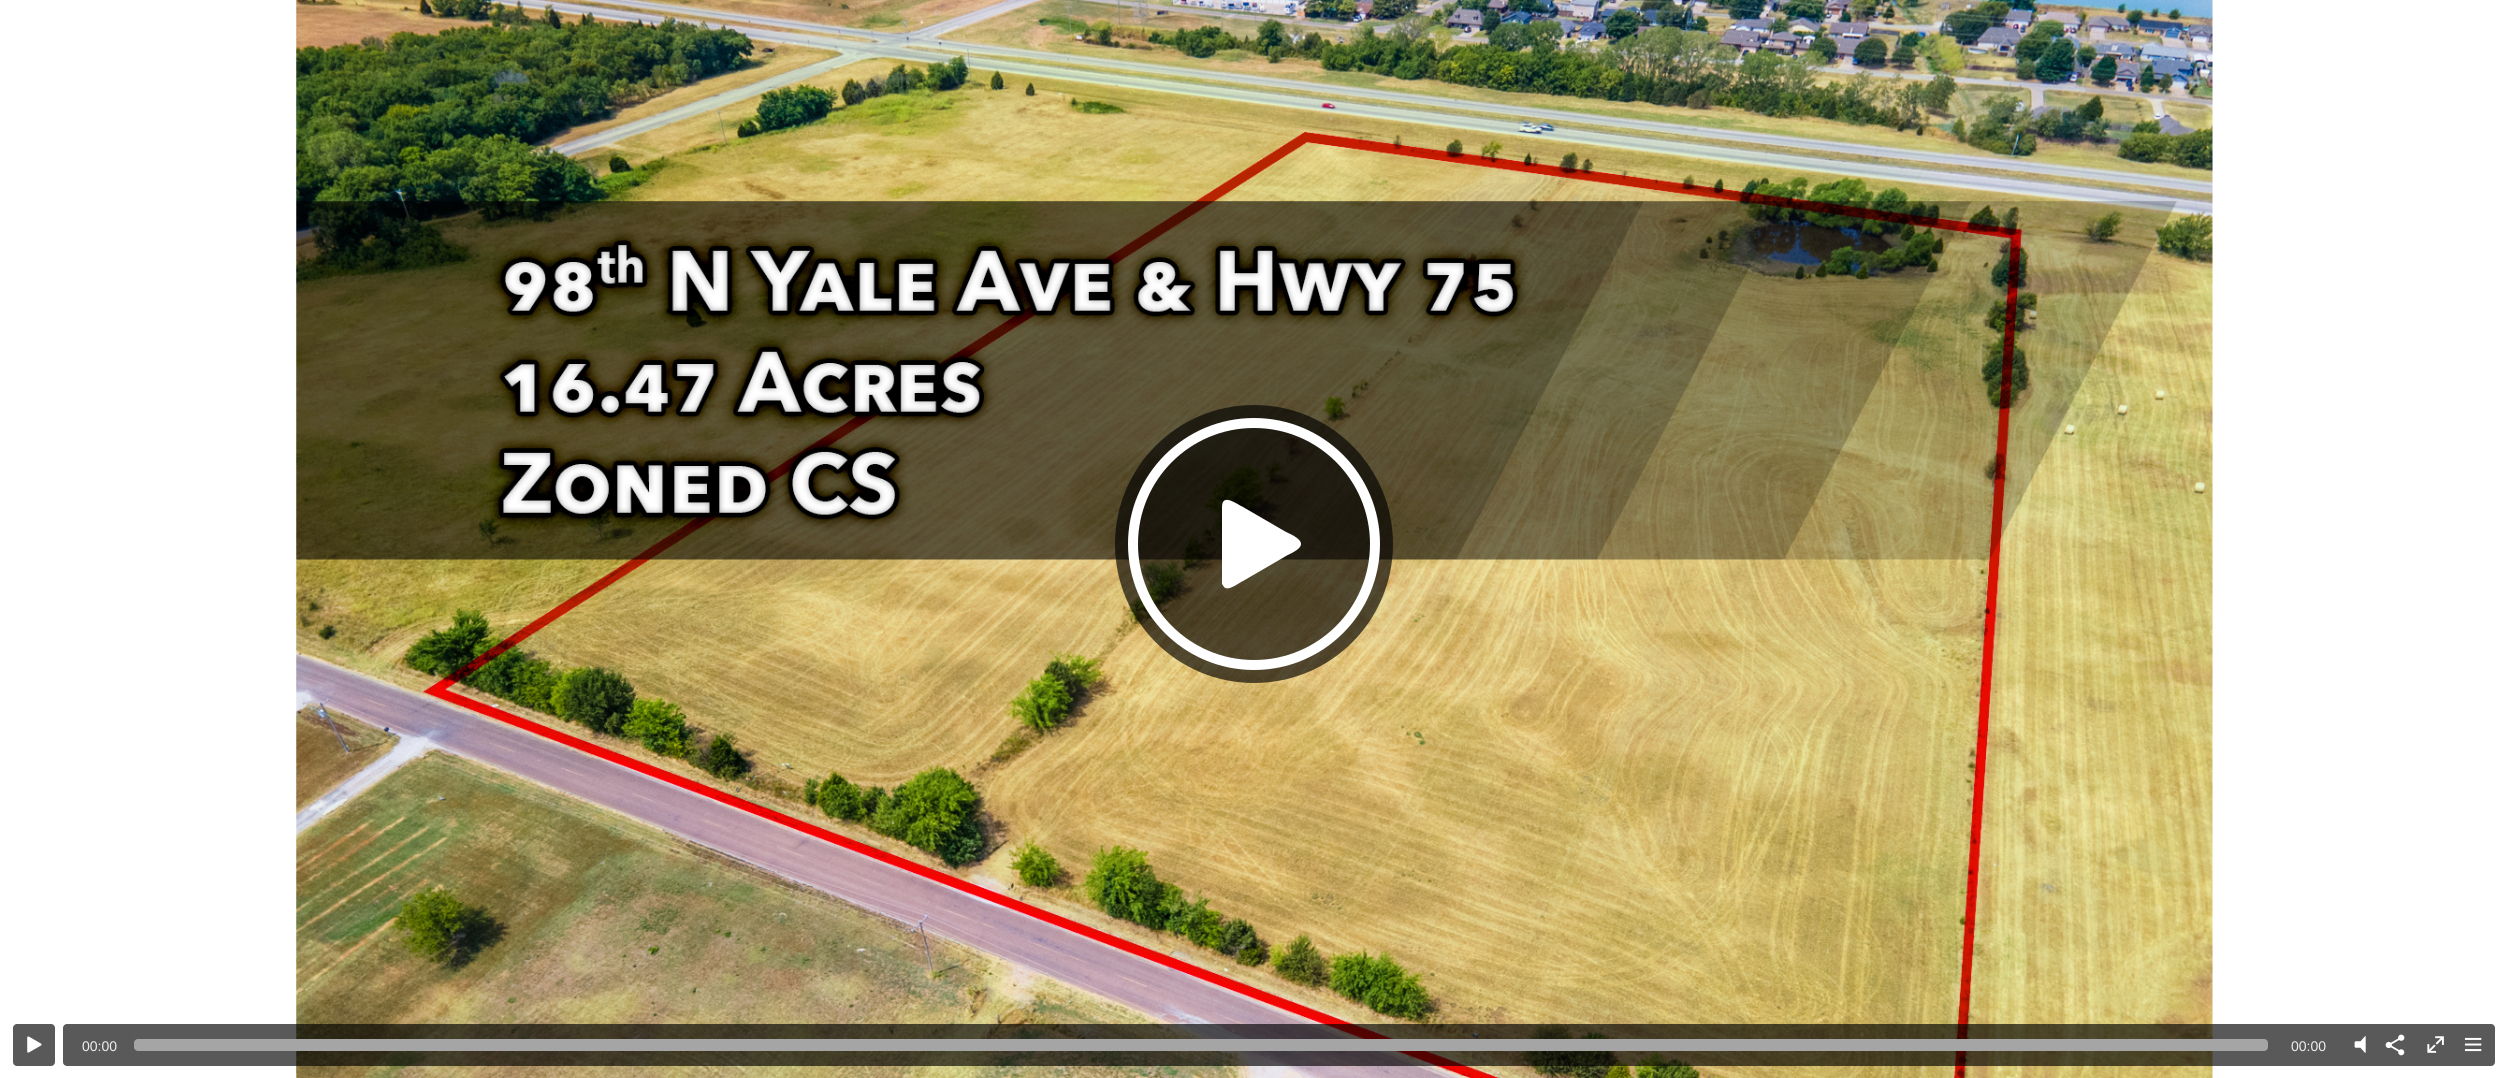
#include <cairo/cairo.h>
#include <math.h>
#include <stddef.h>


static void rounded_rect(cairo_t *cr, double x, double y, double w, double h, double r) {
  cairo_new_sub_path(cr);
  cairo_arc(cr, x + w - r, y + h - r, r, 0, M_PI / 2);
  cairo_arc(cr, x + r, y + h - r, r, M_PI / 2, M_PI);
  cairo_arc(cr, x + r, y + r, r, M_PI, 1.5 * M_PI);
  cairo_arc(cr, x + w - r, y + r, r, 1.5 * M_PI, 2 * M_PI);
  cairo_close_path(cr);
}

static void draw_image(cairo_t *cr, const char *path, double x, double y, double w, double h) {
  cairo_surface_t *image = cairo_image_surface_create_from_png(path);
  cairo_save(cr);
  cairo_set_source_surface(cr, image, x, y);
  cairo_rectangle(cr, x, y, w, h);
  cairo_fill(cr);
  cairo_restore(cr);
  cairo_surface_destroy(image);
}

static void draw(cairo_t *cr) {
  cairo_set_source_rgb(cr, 1, 1, 1);
  cairo_paint(cr);
  draw_image(cr, "images/1.png", 296, 0, 1917, 1078);
  cairo_set_source_rgba(cr, 0, 0, 0, 0.65);
  cairo_arc(cr, 1254, 544, 139, 0, 2 * M_PI);
  cairo_fill(cr);
  cairo_arc(cr, 1254, 544, 121, 0, 2 * M_PI);
  cairo_set_source_rgb(cr, 1, 1, 1);
  cairo_set_line_width(cr, 10);
  cairo_stroke(cr);
  cairo_new_path(cr);
  cairo_move_to(cr, 1222, 507);
  cairo_curve_to(cr, 1222, 492, 1238, 505, 1243, 507);
  cairo_line_to(cr, 1286, 532);
  cairo_curve_to(cr, 1288, 533, 1301, 538, 1301, 544);
  cairo_curve_to(cr, 1301, 550, 1287, 555, 1286, 556);
  cairo_line_to(cr, 1243, 581);
  cairo_curve_to(cr, 1240, 582, 1228, 592, 1224, 587);
  cairo_line_to(cr, 1222, 584);
  cairo_close_path(cr);
  cairo_fill(cr);
  cairo_set_source_rgba(cr, 0, 0, 0, 0.65);
  rounded_rect(cr, 63, 1024, 2432, 42, 4);
  cairo_fill(cr);
  cairo_set_source_rgb(cr, 89 / 255.0, 89 / 255.0, 89 / 255.0);
  rounded_rect(cr, 13, 1024, 42, 42, 4);
  cairo_fill(cr);
  draw_image(cr, "images/2.png", 27, 1036, 15, 17);
  cairo_set_source_rgb(cr, 165 / 255.0, 165 / 255.0, 165 / 255.0);
  rounded_rect(cr, 134, 1039, 2134, 12, 4);
  cairo_fill(cr);
  draw_image(cr, "images/3.png", 2354, 1036, 12, 17);
  draw_image(cr, "images/4.png", 2385, 1034, 20, 22);
  draw_image(cr, "images/5.png", 2427, 1036, 17, 17);
  draw_image(cr, "images/6.png", 2464, 1037, 18, 15);
  cairo_select_font_face(cr, "Liberation Sans", CAIRO_FONT_SLANT_NORMAL, CAIRO_FONT_WEIGHT_NORMAL);
  cairo_set_font_size(cr, 14);
  cairo_set_source_rgb(cr, 238 / 255.0, 238 / 255.0, 238 / 255.0);
  cairo_move_to(cr, 82, 1051);
  cairo_show_text(cr, "00:00");
  cairo_move_to(cr, 2291, 1051);
  cairo_show_text(cr, "00:00");
}

int main(void) {
  cairo_surface_t *surface = cairo_image_surface_create(CAIRO_FORMAT_RGB24, 2507, 1078);
  cairo_t *cr = cairo_create(surface);
  cairo_font_options_t *options = cairo_font_options_create();
  cairo_font_options_set_hint_metrics(options, CAIRO_HINT_METRICS_OFF);
  cairo_font_options_set_hint_style(options, CAIRO_HINT_STYLE_NONE);
  cairo_set_font_options(cr, options);
  cairo_set_miter_limit(cr, 4);
  draw(cr);
  cairo_surface_write_to_png(surface, "out.png");
  cairo_font_options_destroy(options);
  cairo_destroy(cr);
  cairo_surface_destroy(surface);
  return 0;
}
